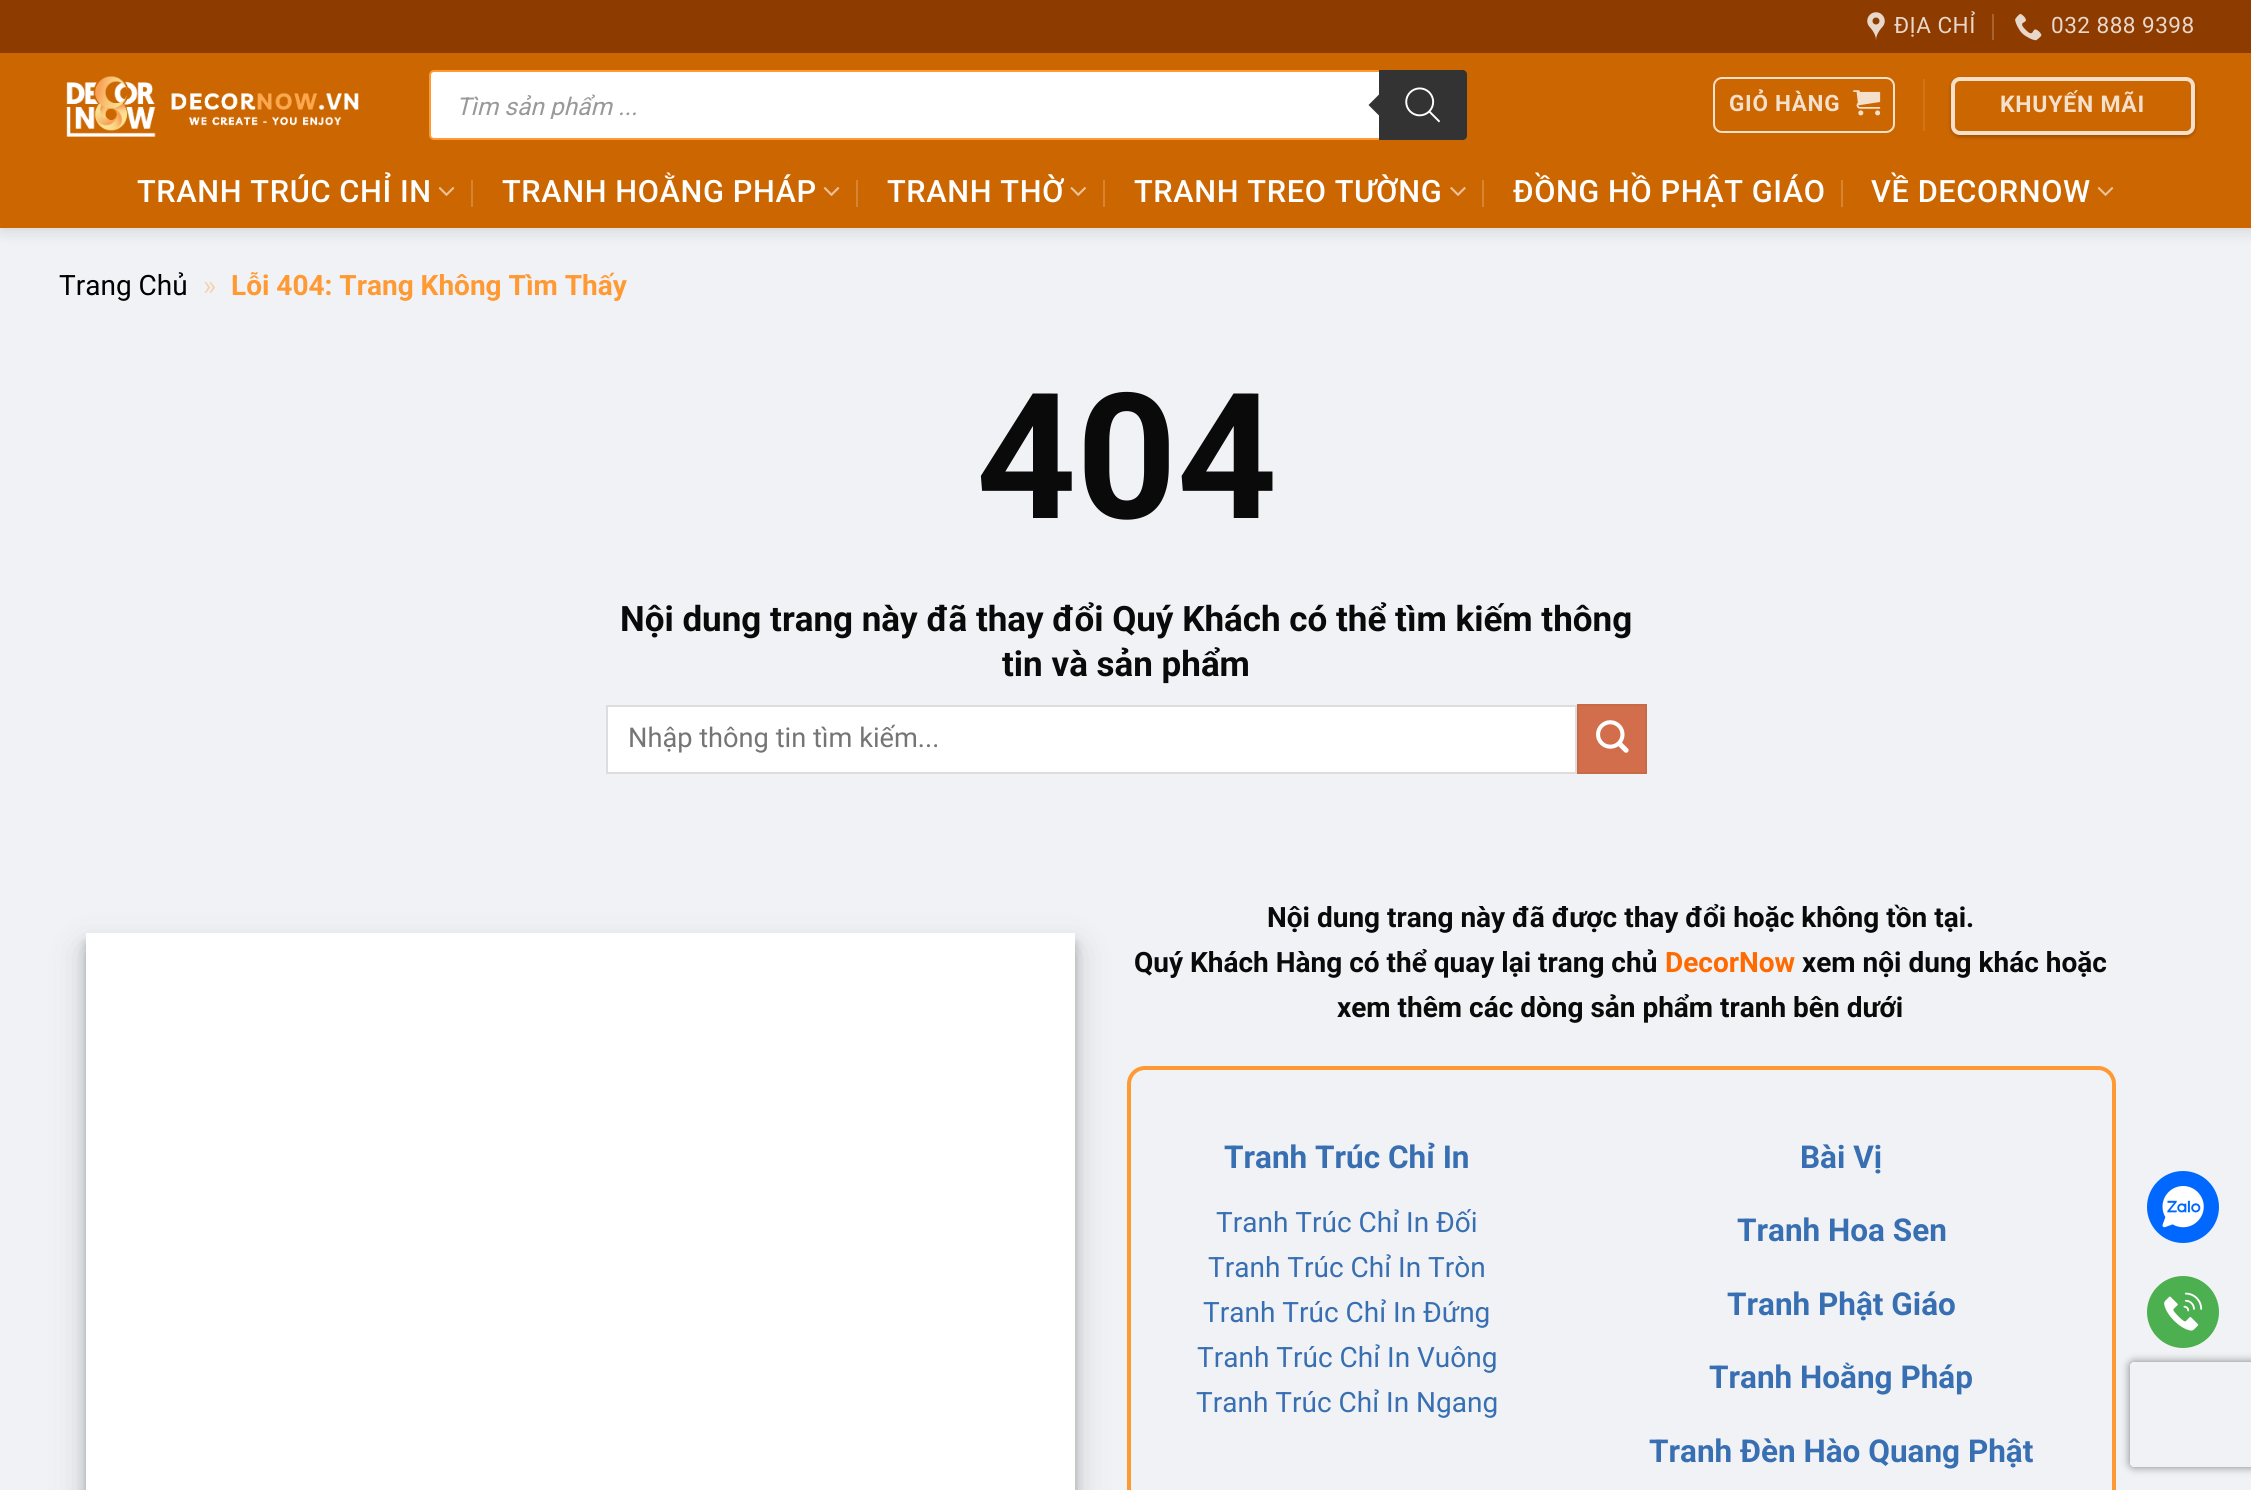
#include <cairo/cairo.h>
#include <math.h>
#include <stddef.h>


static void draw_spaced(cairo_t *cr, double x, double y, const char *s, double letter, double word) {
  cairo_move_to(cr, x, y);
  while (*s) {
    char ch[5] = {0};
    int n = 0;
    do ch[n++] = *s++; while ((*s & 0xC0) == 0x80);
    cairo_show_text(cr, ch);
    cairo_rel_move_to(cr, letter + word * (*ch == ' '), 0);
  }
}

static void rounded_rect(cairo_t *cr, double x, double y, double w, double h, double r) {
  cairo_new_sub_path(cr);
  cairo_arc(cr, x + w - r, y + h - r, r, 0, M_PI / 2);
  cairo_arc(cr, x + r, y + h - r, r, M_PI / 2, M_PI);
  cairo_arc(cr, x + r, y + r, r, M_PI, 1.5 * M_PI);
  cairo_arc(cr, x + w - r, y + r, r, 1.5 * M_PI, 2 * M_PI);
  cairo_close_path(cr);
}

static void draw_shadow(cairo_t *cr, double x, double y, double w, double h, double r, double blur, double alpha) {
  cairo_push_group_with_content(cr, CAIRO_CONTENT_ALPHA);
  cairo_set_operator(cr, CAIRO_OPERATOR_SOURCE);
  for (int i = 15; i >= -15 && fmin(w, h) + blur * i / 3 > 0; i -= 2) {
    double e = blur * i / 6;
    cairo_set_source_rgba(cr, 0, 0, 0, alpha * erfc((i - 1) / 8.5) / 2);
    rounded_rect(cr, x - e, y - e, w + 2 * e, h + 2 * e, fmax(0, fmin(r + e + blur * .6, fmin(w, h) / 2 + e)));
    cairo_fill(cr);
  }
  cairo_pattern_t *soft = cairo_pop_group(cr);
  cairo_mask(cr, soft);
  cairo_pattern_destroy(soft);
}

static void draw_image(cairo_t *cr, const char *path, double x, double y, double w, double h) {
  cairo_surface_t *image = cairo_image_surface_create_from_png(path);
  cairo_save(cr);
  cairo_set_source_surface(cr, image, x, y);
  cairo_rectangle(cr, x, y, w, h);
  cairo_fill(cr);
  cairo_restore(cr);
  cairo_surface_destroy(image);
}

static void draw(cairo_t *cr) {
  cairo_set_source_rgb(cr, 240 / 255.0, 242 / 255.0, 245 / 255.0);
  cairo_paint(cr);
  cairo_set_source_rgb(cr, 0, 0, 0);
  draw_shadow(cr, 2, 2, 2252, 227, 0, 9, 0.15);
  cairo_set_source_rgb(cr, 142 / 255.0, 59 / 255.0, 0);
  cairo_rectangle(cr, 0, 0, 2251, 53);
  cairo_fill(cr);
  draw_image(cr, "images/1.png", 1867, 12, 18, 28);
  cairo_set_source_rgb(cr, 165 / 255.0, 98 / 255.0, 51 / 255.0);
  cairo_rectangle(cr, 1992, 14, 2, 26);
  cairo_fill(cr);
  draw_image(cr, "images/2.png", 2015, 14, 27, 27);
  cairo_set_source_rgb(cr, 204 / 255.0, 102 / 255.0, 0);
  cairo_rectangle(cr, 0, 53, 2251, 175);
  cairo_fill(cr);
  draw_image(cr, "images/3.png", 66, 76, 293, 61);
  cairo_set_source_rgb(cr, 1, 1, 1);
  rounded_rect(cr, 430, 71, 1036, 68, 4);
  cairo_fill_preserve(cr);
  cairo_set_source_rgb(cr, 1, 153 / 255.0, 51 / 255.0);
  cairo_stroke(cr);
  cairo_set_source_rgb(cr, 51 / 255.0, 51 / 255.0, 51 / 255.0);
  cairo_new_path(cr);
  cairo_move_to(cr, 1379, 70);
  cairo_line_to(cr, 1463, 70);
  cairo_curve_to(cr, 1465, 70, 1467, 72, 1467, 74);
  cairo_line_to(cr, 1467, 136);
  cairo_curve_to(cr, 1467, 138, 1465, 140, 1463, 140);
  cairo_line_to(cr, 1379, 140);
  cairo_close_path(cr);
  cairo_fill(cr);
  cairo_new_path(cr);
  cairo_move_to(cr, 1382.5, 91);
  cairo_line_to(cr, 1382.5, 119);
  cairo_line_to(cr, 1368.5, 105);
  cairo_close_path(cr);
  cairo_fill(cr);
  draw_image(cr, "images/4.png", 1405, 87, 35, 36);
  rounded_rect(cr, 1714, 78, 180, 54, 8);
  cairo_set_source_rgb(cr, 245 / 255.0, 224 / 255.0, 204 / 255.0);
  cairo_stroke(cr);
  draw_image(cr, "images/5.png", 1853, 90, 28, 26);
  cairo_set_source_rgb(cr, 209 / 255.0, 117 / 255.0, 26 / 255.0);
  cairo_rectangle(cr, 1923, 79, 2, 52);
  cairo_fill(cr);
  cairo_save(cr);
  cairo_set_fill_rule(cr, CAIRO_FILL_RULE_EVEN_ODD);
  cairo_new_path(cr);
  cairo_move_to(cr, 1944, 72);
  cairo_line_to(cr, 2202, 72);
  cairo_line_to(cr, 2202, 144);
  cairo_line_to(cr, 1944, 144);
  cairo_close_path(cr);
  cairo_move_to(cr, 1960, 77);
  cairo_line_to(cr, 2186, 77);
  cairo_curve_to(cr, 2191, 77, 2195, 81, 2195, 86);
  cairo_line_to(cr, 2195, 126);
  cairo_curve_to(cr, 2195, 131, 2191, 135, 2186, 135);
  cairo_line_to(cr, 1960, 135);
  cairo_curve_to(cr, 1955, 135, 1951, 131, 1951, 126);
  cairo_line_to(cr, 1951, 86);
  cairo_curve_to(cr, 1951, 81, 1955, 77, 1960, 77);
  cairo_close_path(cr);
  cairo_clip(cr);
  cairo_set_source_rgb(cr, 0, 0, 0);
  draw_shadow(cr, 1951, 79, 244, 58, 9, 2, 0.24);
  cairo_restore(cr);
  rounded_rect(cr, 1953, 79, 240, 54, 7);
  cairo_set_source_rgba(cr, 1, 1, 1, 0.8);
  cairo_set_line_width(cr, 4);
  cairo_stroke(cr);
  draw_image(cr, "images/6.png", 438, 187, 17, 9);
  cairo_set_source_rgb(cr, 214 / 255.0, 133 / 255.0, 51 / 255.0);
  cairo_rectangle(cr, 471, 180, 2, 27);
  cairo_fill(cr);
  draw_image(cr, "images/6.png", 823, 187, 17, 9);
  cairo_rectangle(cr, 856, 180, 2, 27);
  cairo_fill(cr);
  draw_image(cr, "images/7.png", 1070, 187, 16, 9);
  cairo_rectangle(cr, 1103, 180, 2, 27);
  cairo_fill(cr);
  draw_image(cr, "images/8.png", 1450, 187, 16, 9);
  cairo_rectangle(cr, 1482, 180, 2, 27);
  cairo_fill(cr);
  cairo_rectangle(cr, 1841, 180, 2, 27);
  cairo_fill(cr);
  draw_image(cr, "images/6.png", 2097, 187, 17, 9);
  cairo_set_source_rgb(cr, 1, 1, 1);
  cairo_rectangle(cr, 607, 706, 969, 67);
  cairo_fill_preserve(cr);
  cairo_set_source_rgb(cr, 221 / 255.0, 221 / 255.0, 221 / 255.0);
  cairo_set_line_width(cr, 2);
  cairo_stroke(cr);
  cairo_set_source_rgb(cr, 210 / 255.0, 110 / 255.0, 75 / 255.0);
  cairo_rectangle(cr, 1578, 705, 68, 68);
  cairo_fill_preserve(cr);
  cairo_set_source_rgb(cr, 200 / 255.0, 105 / 255.0, 71 / 255.0);
  cairo_stroke(cr);
  draw_image(cr, "images/9.png", 1596, 720, 33, 33);
  cairo_set_source_rgb(cr, 0, 0, 0);
  draw_shadow(cr, 86, 943, 989, 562, 0, 5, 0.22);
  draw_shadow(cr, 86, 950, 989, 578, 0, 17.5, 0.19);
  cairo_set_source_rgb(cr, 1, 1, 1);
  cairo_rectangle(cr, 86, 933, 989, 557);
  cairo_fill(cr);
  cairo_save(cr);
  cairo_set_fill_rule(cr, CAIRO_FILL_RULE_EVEN_ODD);
  cairo_new_path(cr);
  cairo_move_to(cr, 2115, 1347);
  cairo_line_to(cr, 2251, 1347);
  cairo_line_to(cr, 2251, 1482);
  cairo_line_to(cr, 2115, 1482);
  cairo_close_path(cr);
  cairo_move_to(cr, 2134, 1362);
  cairo_line_to(cr, 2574, 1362);
  cairo_curve_to(cr, 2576, 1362, 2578, 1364, 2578, 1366);
  cairo_line_to(cr, 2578, 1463);
  cairo_curve_to(cr, 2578, 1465, 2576, 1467, 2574, 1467);
  cairo_line_to(cr, 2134, 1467);
  cairo_curve_to(cr, 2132, 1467, 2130, 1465, 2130, 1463);
  cairo_line_to(cr, 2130, 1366);
  cairo_curve_to(cr, 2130, 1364, 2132, 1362, 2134, 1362);
  cairo_close_path(cr);
  cairo_clip(cr);
  cairo_set_source_rgb(cr, 128 / 255.0, 128 / 255.0, 128 / 255.0);
  draw_shadow(cr, 2130, 1362, 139, 105, 4, 4.5, 1);
  cairo_restore(cr);
  rounded_rect(cr, 1129, 1068, 985, 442, 16);
  cairo_set_source_rgb(cr, 1, 153 / 255.0, 51 / 255.0);
  cairo_set_line_width(cr, 4);
  cairo_stroke(cr);
  cairo_set_source_rgb(cr, 0, 104 / 255.0, 1);
  cairo_arc(cr, 2183, 1207, 36, 0, 2 * M_PI);
  cairo_fill(cr);
  draw_image(cr, "images/10.png", 2162, 1186, 42, 42);
  cairo_set_source_rgb(cr, 76 / 255.0, 175 / 255.0, 80 / 255.0);
  cairo_arc(cr, 2183, 1312, 36, 0, 2 * M_PI);
  cairo_fill(cr);
  draw_image(cr, "images/11.png", 2164, 1292, 39, 39);
  cairo_select_font_face(cr, "Roboto", CAIRO_FONT_SLANT_NORMAL, CAIRO_FONT_WEIGHT_NORMAL);
  cairo_set_font_size(cr, 22.5);
  cairo_set_source_rgb(cr, 232 / 255.0, 216 / 255.0, 204 / 255.0);
  draw_spaced(cr, 1894, 33, "ĐỊA CHỈ", 0.5, 0);
  draw_spaced(cr, 2051, 33, "032 888 9398", 0.5, 0);
  cairo_save(cr);
  cairo_rectangle(cr, 457, 91, 982, 28);
  cairo_clip(cr);
  cairo_select_font_face(cr, "Roboto", CAIRO_FONT_SLANT_ITALIC, CAIRO_FONT_WEIGHT_NORMAL);
  cairo_set_font_size(cr, 24.5);
  cairo_set_source_rgb(cr, 153 / 255.0, 153 / 255.0, 153 / 255.0);
  cairo_move_to(cr, 456, 115);
  cairo_show_text(cr, "Tìm sản phẩm ...");
  cairo_restore(cr);
  cairo_select_font_face(cr, "Roboto", CAIRO_FONT_SLANT_NORMAL, CAIRO_FONT_WEIGHT_BOLD);
  cairo_set_source_rgb(cr, 245 / 255.0, 224 / 255.0, 204 / 255.0);
  draw_spaced(cr, 1729, 111, "GIỎ HÀNG", 0.75, 0);
  cairo_set_font_size(cr, 23);
  draw_spaced(cr, 2000, 112, "KHUYẾN MÃI", 0.75, 0);
  cairo_select_font_face(cr, "Roboto Medium", CAIRO_FONT_SLANT_NORMAL, CAIRO_FONT_WEIGHT_NORMAL);
  cairo_set_font_size(cr, 30.75);
  cairo_set_source_rgb(cr, 1, 1, 1);
  draw_spaced(cr, 137, 202, "TRANH TRÚC CHỈ IN", 0.6, 0);
  draw_spaced(cr, 502, 202, "TRANH HOẰNG PHÁP", 0.6, 0);
  draw_spaced(cr, 887, 202, "TRANH THỜ", 0.6, 0);
  draw_spaced(cr, 1134, 202, "TRANH TREO TƯỜNG", 0.6, 0);
  draw_spaced(cr, 1513, 202, "ĐỒNG HỒ PHẬT GIÁO", 0.6, 0);
  draw_spaced(cr, 1871, 202, "VỀ DECORNOW", 0.6, 0);
  cairo_select_font_face(cr, "Roboto", CAIRO_FONT_SLANT_NORMAL, CAIRO_FONT_WEIGHT_NORMAL);
  cairo_set_font_size(cr, 28);
  cairo_set_source_rgb(cr, 0, 0, 0);
  cairo_move_to(cr, 59, 295);
  cairo_show_text(cr, "Trang Chủ");
  cairo_set_source_rgb(cr, 245 / 255.0, 211 / 255.0, 177 / 255.0);
  cairo_move_to(cr, 203, 295);
  cairo_show_text(cr, "»");
  cairo_select_font_face(cr, "Roboto", CAIRO_FONT_SLANT_NORMAL, CAIRO_FONT_WEIGHT_BOLD);
  cairo_set_source_rgb(cr, 1, 153 / 255.0, 51 / 255.0);
  cairo_move_to(cr, 231, 295);
  cairo_show_text(cr, "Lỗi 404: Trang Không Tìm Thấy");
  cairo_set_font_size(cr, 175);
  cairo_set_source_rgb(cr, 10 / 255.0, 10 / 255.0, 10 / 255.0);
  cairo_move_to(cr, 976, 518);
  cairo_show_text(cr, "404");
  cairo_set_font_size(cr, 35);
  cairo_move_to(cr, 620, 631);
  cairo_show_text(cr, "Nội dung trang này đã thay đổi Quý Khách có thể tìm kiếm thông");
  cairo_move_to(cr, 1002, 676);
  cairo_show_text(cr, "tin và sản phẩm");
  cairo_select_font_face(cr, "Roboto", CAIRO_FONT_SLANT_NORMAL, CAIRO_FONT_WEIGHT_NORMAL);
  cairo_set_font_size(cr, 27.2);
  cairo_set_source_rgb(cr, 117 / 255.0, 117 / 255.0, 117 / 255.0);
  cairo_move_to(cr, 628, 747);
  cairo_show_text(cr, "Nhập thông tin tìm kiếm...");
  cairo_select_font_face(cr, "Roboto", CAIRO_FONT_SLANT_NORMAL, CAIRO_FONT_WEIGHT_BOLD);
  cairo_set_font_size(cr, 28);
  cairo_set_source_rgb(cr, 10 / 255.0, 10 / 255.0, 10 / 255.0);
  cairo_move_to(cr, 1267, 927);
  cairo_show_text(cr, "Nội dung trang này đã được thay đổi hoặc không tồn tại.");
  cairo_move_to(cr, 1134, 972);
  cairo_show_text(cr, "Quý Khách Hàng có thể quay lại trang chủ");
  cairo_set_source_rgb(cr, 1, 105 / 255.0, 0);
  cairo_move_to(cr, 1665, 972);
  cairo_show_text(cr, "DecorNow");
  cairo_set_source_rgb(cr, 10 / 255.0, 10 / 255.0, 10 / 255.0);
  cairo_move_to(cr, 1802, 972);
  cairo_show_text(cr, "xem nội dung khác hoặc");
  cairo_move_to(cr, 1337, 1017);
  cairo_show_text(cr, "xem thêm các dòng sản phẩm tranh bên dưới");
  cairo_set_font_size(cr, 31.5);
  cairo_set_source_rgb(cr, 56 / 255.0, 111 / 255.0, 178 / 255.0);
  cairo_move_to(cr, 1224, 1168);
  cairo_show_text(cr, "Tranh Trúc Chỉ In");
  cairo_select_font_face(cr, "Roboto", CAIRO_FONT_SLANT_NORMAL, CAIRO_FONT_WEIGHT_NORMAL);
  cairo_set_font_size(cr, 28);
  cairo_move_to(cr, 1216, 1232);
  cairo_show_text(cr, "Tranh Trúc Chỉ In Đối");
  cairo_move_to(cr, 1208, 1277);
  cairo_show_text(cr, "Tranh Trúc Chỉ In Tròn");
  cairo_move_to(cr, 1203, 1322);
  cairo_show_text(cr, "Tranh Trúc Chỉ In Đứng");
  cairo_move_to(cr, 1197, 1367);
  cairo_show_text(cr, "Tranh Trúc Chỉ In Vuông");
  cairo_move_to(cr, 1196, 1412);
  cairo_show_text(cr, "Tranh Trúc Chỉ In Ngang");
  cairo_select_font_face(cr, "Roboto", CAIRO_FONT_SLANT_NORMAL, CAIRO_FONT_WEIGHT_BOLD);
  cairo_set_font_size(cr, 31.5);
  cairo_move_to(cr, 1800, 1168);
  cairo_show_text(cr, "Bài Vị");
  cairo_move_to(cr, 1737, 1241);
  cairo_show_text(cr, "Tranh Hoa Sen");
  cairo_move_to(cr, 1727, 1315);
  cairo_show_text(cr, "Tranh Phật Giáo");
  cairo_move_to(cr, 1709, 1388);
  cairo_show_text(cr, "Tranh Hoằng Pháp");
  cairo_move_to(cr, 1649, 1462);
  cairo_show_text(cr, "Tranh Đèn Hào Quang Phật");
}

int main(void) {
  cairo_surface_t *surface = cairo_image_surface_create(CAIRO_FORMAT_RGB24, 2251, 1490);
  cairo_t *cr = cairo_create(surface);
  cairo_font_options_t *options = cairo_font_options_create();
  cairo_font_options_set_hint_metrics(options, CAIRO_HINT_METRICS_OFF);
  cairo_font_options_set_hint_style(options, CAIRO_HINT_STYLE_NONE);
  cairo_set_font_options(cr, options);
  cairo_set_miter_limit(cr, 4);
  draw(cr);
  cairo_surface_write_to_png(surface, "out.png");
  cairo_font_options_destroy(options);
  cairo_destroy(cr);
  cairo_surface_destroy(surface);
  return 0;
}
